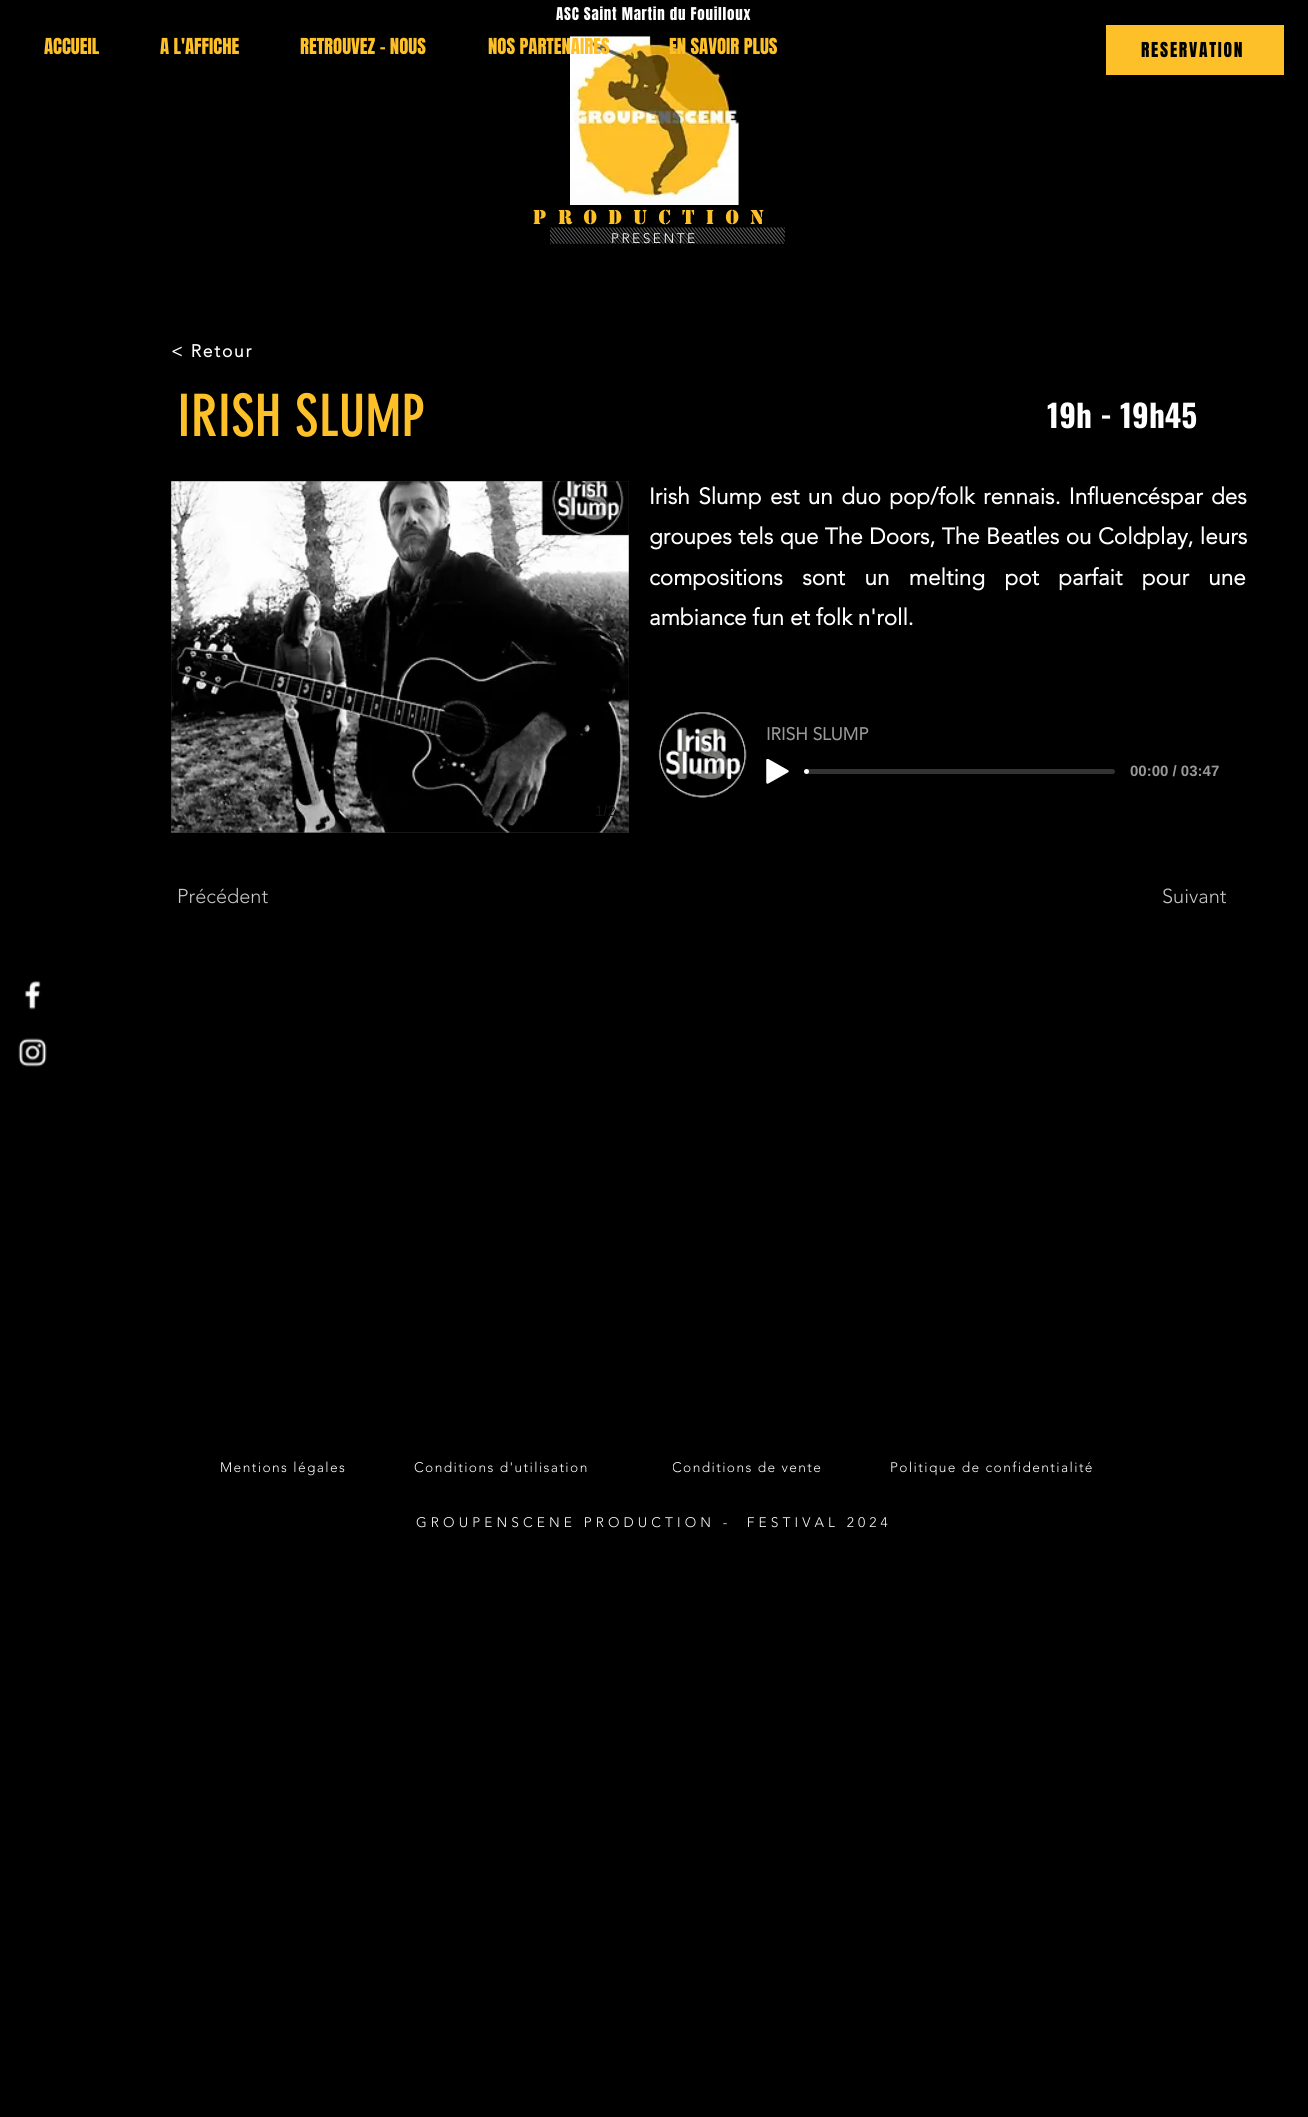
#include <cairo/cairo.h>
#include <math.h>
#include <stddef.h>


static void draw_spaced(cairo_t *cr, double x, double y, const char *s, double letter, double word) {
  cairo_move_to(cr, x, y);
  while (*s) {
    char ch[5] = {0};
    int n = 0;
    do ch[n++] = *s++; while ((*s & 0xC0) == 0x80);
    cairo_show_text(cr, ch);
    cairo_rel_move_to(cr, letter + word * (*ch == ' '), 0);
  }
}

static void rounded_rect(cairo_t *cr, double x, double y, double w, double h, double r) {
  cairo_new_sub_path(cr);
  cairo_arc(cr, x + w - r, y + h - r, r, 0, M_PI / 2);
  cairo_arc(cr, x + r, y + h - r, r, M_PI / 2, M_PI);
  cairo_arc(cr, x + r, y + r, r, M_PI, 1.5 * M_PI);
  cairo_arc(cr, x + w - r, y + r, r, 1.5 * M_PI, 2 * M_PI);
  cairo_close_path(cr);
}

static void draw_image(cairo_t *cr, const char *path, double x, double y, double w, double h) {
  cairo_surface_t *image = cairo_image_surface_create_from_png(path);
  cairo_save(cr);
  cairo_set_source_surface(cr, image, x, y);
  cairo_rectangle(cr, x, y, w, h);
  cairo_fill(cr);
  cairo_restore(cr);
  cairo_surface_destroy(image);
}

static void draw(cairo_t *cr) {
  cairo_set_source_rgb(cr, 0, 0, 0);
  cairo_paint(cr);
  draw_image(cr, "images/1.png", 570, 36, 169, 169);
  draw_image(cr, "images/2.png", 550, 227, 235, 17);
  cairo_set_source_rgb(cr, 253 / 255.0, 192 / 255.0, 41 / 255.0);
  cairo_rectangle(cr, 1106, 25, 178, 50);
  cairo_fill(cr);
  draw_image(cr, "images/3.png", 658, 712, 89, 86);
  draw_image(cr, "images/4.png", 766, 759, 23, 25);
  cairo_set_source_rgb(cr, 51 / 255.0, 51 / 255.0, 51 / 255.0);
  rounded_rect(cr, 806, 769, 309, 5, 2.5);
  cairo_fill(cr);
  cairo_set_source_rgb(cr, 1, 1, 1);
  cairo_arc(cr, 806.5, 771.5, 2.5, 0, 2 * M_PI);
  cairo_fill(cr);
  cairo_set_source_rgb(cr, 47 / 255.0, 46 / 255.0, 46 / 255.0);
  cairo_rectangle(cr, 171, 481, 458, 352);
  cairo_fill(cr);
  draw_image(cr, "images/5.png", 171, 481, 458, 352);
  draw_image(cr, "images/6.png", 24, 981, 17, 29);
  draw_image(cr, "images/7.png", 18, 1038, 29, 29);
  cairo_select_font_face(cr, "Anton", CAIRO_FONT_SLANT_NORMAL, CAIRO_FONT_WEIGHT_NORMAL);
  cairo_set_font_size(cr, 15);
  cairo_set_source_rgb(cr, 1, 1, 1);
  draw_spaced(cr, 556, 20, "ASC Saint Martin du Fouilloux", 0.75, 0);
  cairo_select_font_face(cr, "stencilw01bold", CAIRO_FONT_SLANT_NORMAL, CAIRO_FONT_WEIGHT_BOLD);
  cairo_set_font_size(cr, 18.75);
  cairo_set_source_rgb(cr, 253 / 255.0, 192 / 255.0, 41 / 255.0);
  draw_spaced(cr, 533, 224, "Production", 11.25, 0);
  cairo_select_font_face(cr, "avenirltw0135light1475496 Light", CAIRO_FONT_SLANT_NORMAL, CAIRO_FONT_WEIGHT_NORMAL);
  cairo_set_font_size(cr, 13.75);
  cairo_set_source_rgb(cr, 1, 1, 1);
  draw_spaced(cr, 611, 243, "PRESENTE", 2.5, 0);
  cairo_select_font_face(cr, "Anton", CAIRO_FONT_SLANT_NORMAL, CAIRO_FONT_WEIGHT_NORMAL);
  cairo_set_font_size(cr, 18.75);
  cairo_set_source_rgb(cr, 253 / 255.0, 192 / 255.0, 41 / 255.0);
  cairo_move_to(cr, 44, 54);
  cairo_show_text(cr, "ACCUEIL");
  cairo_move_to(cr, 160, 54);
  cairo_show_text(cr, "A L'AFFICHE");
  cairo_move_to(cr, 300, 54);
  cairo_show_text(cr, "RETROUVEZ - NOUS");
  cairo_move_to(cr, 488, 54);
  cairo_show_text(cr, "NOS PARTENAIRES");
  cairo_move_to(cr, 669, 54);
  cairo_show_text(cr, "EN SAVOIR PLUS");
  cairo_set_font_size(cr, 17.5);
  cairo_set_source_rgb(cr, 0, 0, 0);
  draw_spaced(cr, 1141, 57, "RESERVATION", 1.75, 0);
  cairo_select_font_face(cr, "avenirltw0135light1475496", CAIRO_FONT_SLANT_NORMAL, CAIRO_FONT_WEIGHT_BOLD);
  cairo_set_source_rgb(cr, 1, 1, 1);
  draw_spaced(cr, 171, 357, "< Retour", 1.75, 0);
  cairo_select_font_face(cr, "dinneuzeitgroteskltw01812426", CAIRO_FONT_SLANT_NORMAL, CAIRO_FONT_WEIGHT_NORMAL);
  cairo_set_font_size(cr, 57.5);
  cairo_set_source_rgb(cr, 253 / 255.0, 192 / 255.0, 41 / 255.0);
  cairo_move_to(cr, 177, 436);
  cairo_show_text(cr, "IRISH SLUMP");
  cairo_select_font_face(cr, "Oswald", CAIRO_FONT_SLANT_NORMAL, CAIRO_FONT_WEIGHT_BOLD);
  cairo_set_font_size(cr, 31.25);
  cairo_set_source_rgb(cr, 1, 1, 1);
  cairo_move_to(cr, 1047, 428);
  cairo_show_text(cr, "19h - 19h45");
  cairo_select_font_face(cr, "avenirltw0135light1475496", CAIRO_FONT_SLANT_NORMAL, CAIRO_FONT_WEIGHT_BOLD);
  cairo_set_font_size(cr, 22.5);
  draw_spaced(cr, 649, 504, "Irish Slump est un duo pop/folk rennais. Influencéspar des", 0, 2.5);
  draw_spaced(cr, 649, 544, "groupes tels que The Doors, The Beatles ou Coldplay, leurs", 0, 0.5);
  draw_spaced(cr, 649, 585, "compositions sont un melting pot parfait pour une", 0, 13.5);
  cairo_move_to(cr, 649, 625);
  cairo_show_text(cr, "ambiance fun et folk n'roll.");
  cairo_set_font_size(cr, 17.5);
  cairo_set_source_rgb(cr, 153 / 255.0, 153 / 255.0, 153 / 255.0);
  cairo_move_to(cr, 766, 740);
  cairo_show_text(cr, "IRISH SLUMP");
  cairo_select_font_face(cr, "Liberation Sans", CAIRO_FONT_SLANT_NORMAL, CAIRO_FONT_WEIGHT_BOLD);
  cairo_set_font_size(cr, 15);
  cairo_move_to(cr, 1130, 776);
  cairo_show_text(cr, "00:00 / 03:47");
  cairo_select_font_face(cr, "Liberation Sans", CAIRO_FONT_SLANT_NORMAL, CAIRO_FONT_WEIGHT_NORMAL);
  cairo_set_source_rgb(cr, 21 / 255.0, 21 / 255.0, 21 / 255.0);
  cairo_move_to(cr, 595, 816);
  cairo_show_text(cr, "1/2");
  cairo_select_font_face(cr, "avenirltw0135light1475496 Light", CAIRO_FONT_SLANT_NORMAL, CAIRO_FONT_WEIGHT_NORMAL);
  cairo_set_font_size(cr, 20);
  cairo_set_source_rgb(cr, 199 / 255.0, 199 / 255.0, 199 / 255.0);
  cairo_move_to(cr, 177, 903);
  cairo_show_text(cr, "Précédent");
  cairo_move_to(cr, 1162, 903);
  cairo_show_text(cr, "Suivant");
  cairo_set_font_size(cr, 13.75);
  cairo_set_source_rgb(cr, 1, 1, 1);
  draw_spaced(cr, 220, 1472, "Mentions légales", 1.4, 0);
  draw_spaced(cr, 414, 1472, "Conditions d'utilisation", 1.4, 0);
  cairo_save(cr);
  cairo_rectangle(cr, 673, 1460, 148, 16);
  cairo_clip(cr);
  draw_spaced(cr, 672, 1472, "Conditions de vente", 1.4, 0);
  cairo_restore(cr);
  draw_spaced(cr, 890, 1472, "Politique de confidentialité", 1.4, 0);
  draw_spaced(cr, 416, 1527, "GROUPENSCENE PRODUCTION -  FESTIVAL 2024", 4.1, 0);
}

int main(void) {
  cairo_surface_t *surface = cairo_image_surface_create(CAIRO_FORMAT_RGB24, 1308, 2117);
  cairo_t *cr = cairo_create(surface);
  cairo_font_options_t *options = cairo_font_options_create();
  cairo_font_options_set_hint_metrics(options, CAIRO_HINT_METRICS_OFF);
  cairo_font_options_set_hint_style(options, CAIRO_HINT_STYLE_NONE);
  cairo_set_font_options(cr, options);
  cairo_set_miter_limit(cr, 4);
  draw(cr);
  cairo_surface_write_to_png(surface, "out.png");
  cairo_font_options_destroy(options);
  cairo_destroy(cr);
  cairo_surface_destroy(surface);
  return 0;
}
